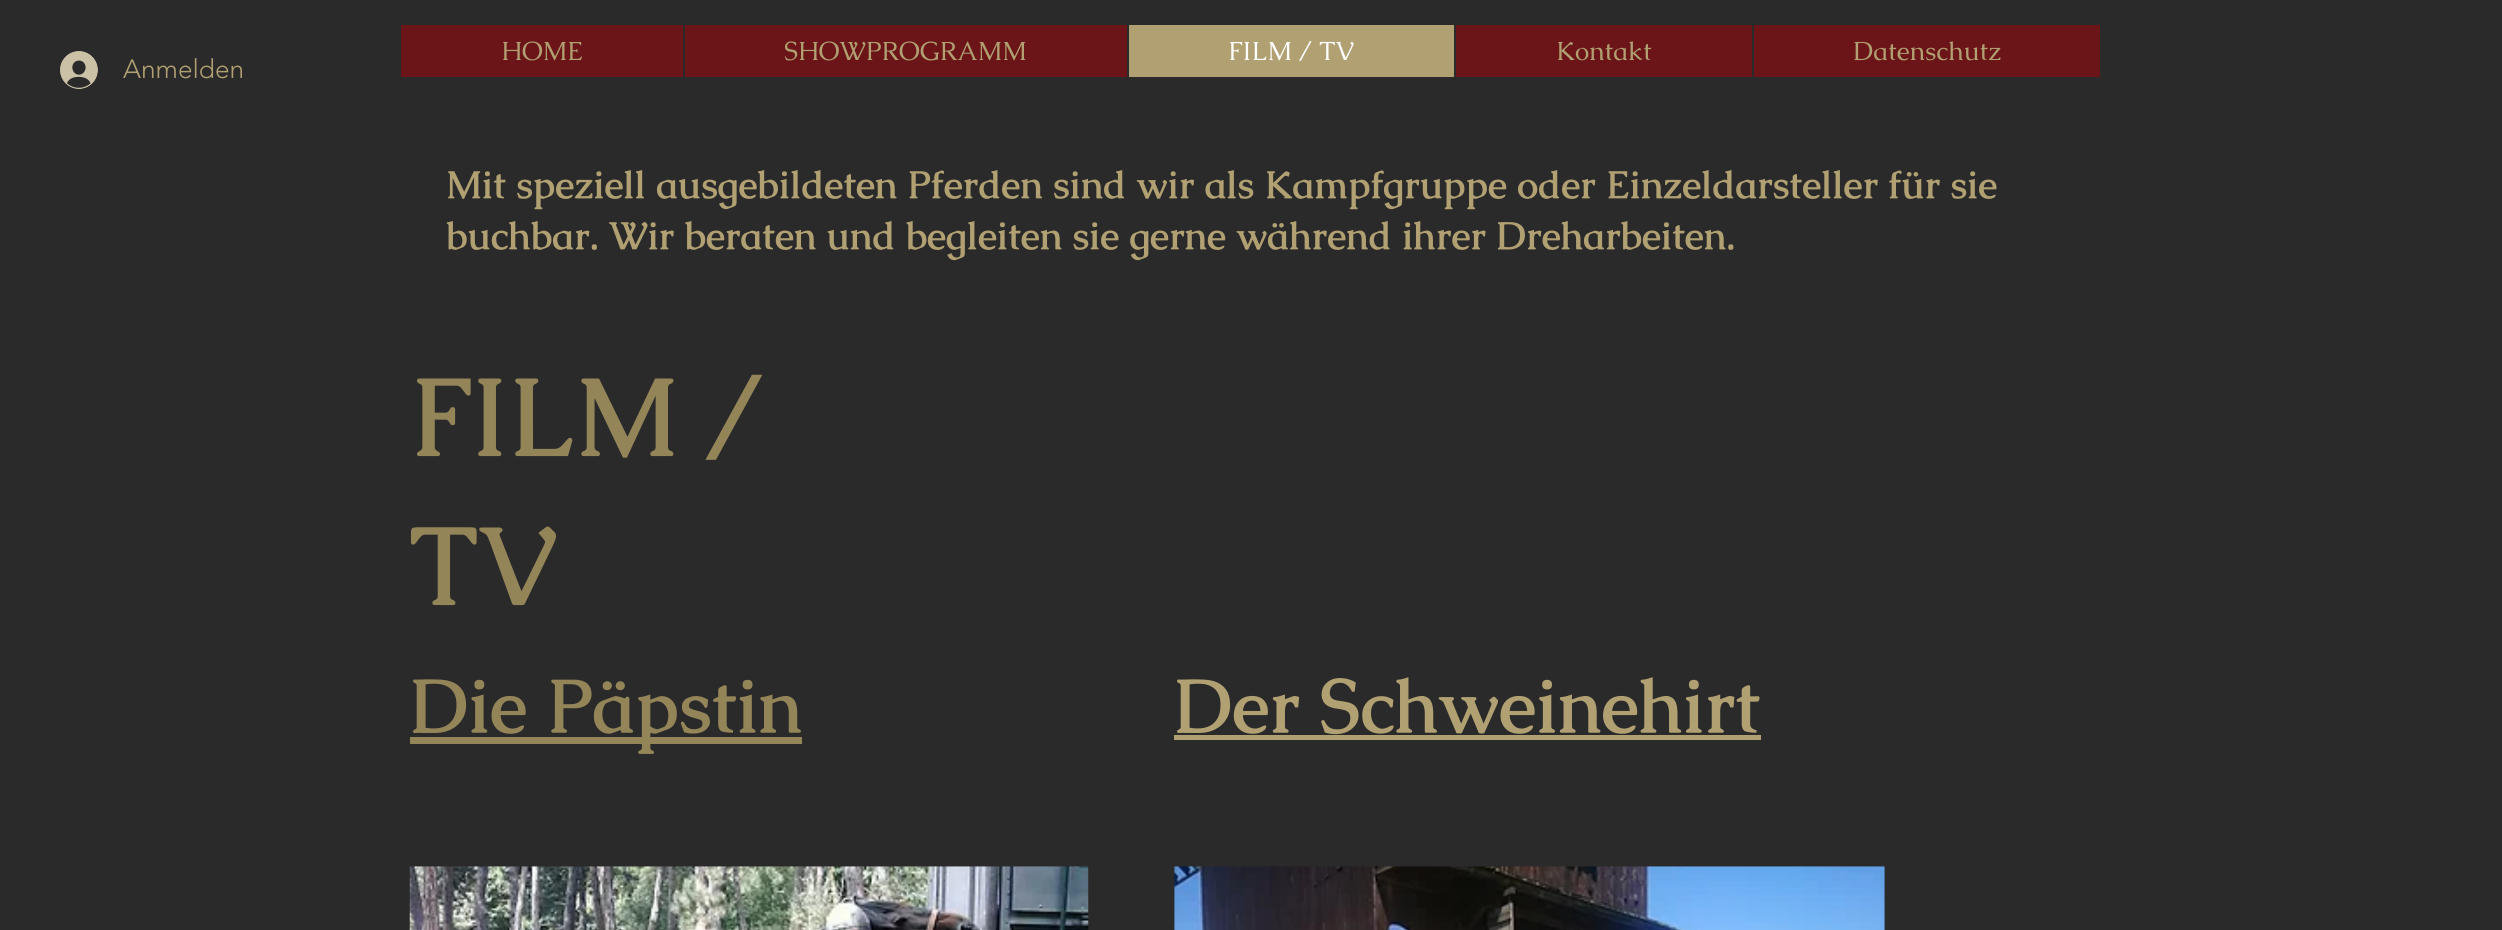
#include <cairo/cairo.h>
#include <math.h>
#include <stddef.h>


static void draw_image(cairo_t *cr, const char *path, double x, double y, double w, double h) {
  cairo_surface_t *image = cairo_image_surface_create_from_png(path);
  cairo_save(cr);
  cairo_set_source_surface(cr, image, x, y);
  cairo_rectangle(cr, x, y, w, h);
  cairo_fill(cr);
  cairo_restore(cr);
  cairo_surface_destroy(image);
}

static void draw(cairo_t *cr) {
  cairo_set_source_rgb(cr, 42 / 255.0, 42 / 255.0, 42 / 255.0);
  cairo_paint(cr);
  cairo_set_source_rgb(cr, 107 / 255.0, 21 / 255.0, 24 / 255.0);
  cairo_rectangle(cr, 401, 25, 1699, 52);
  cairo_fill(cr);
  cairo_set_source_rgb(cr, 42 / 255.0, 42 / 255.0, 42 / 255.0);
  cairo_rectangle(cr, 683, 25, 2, 52);
  cairo_fill(cr);
  cairo_set_source_rgb(cr, 176 / 255.0, 160 / 255.0, 114 / 255.0);
  cairo_rectangle(cr, 1129, 25, 325, 52);
  cairo_fill(cr);
  cairo_set_source_rgb(cr, 42 / 255.0, 42 / 255.0, 42 / 255.0);
  cairo_rectangle(cr, 1127, 25, 2, 52);
  cairo_fill(cr);
  cairo_rectangle(cr, 1454, 25, 2, 52);
  cairo_fill(cr);
  cairo_rectangle(cr, 1752, 25, 2, 52);
  cairo_fill(cr);
  draw_image(cr, "images/1.png", 60, 51, 38, 38);
  cairo_set_source_rgb(cr, 148 / 255.0, 133 / 255.0, 89 / 255.0);
  cairo_rectangle(cr, 410, 737, 392, 7);
  cairo_fill(cr);
  cairo_set_source_rgb(cr, 176 / 255.0, 160 / 255.0, 114 / 255.0);
  cairo_rectangle(cr, 1174, 735, 587, 5);
  cairo_fill(cr);
  draw_image(cr, "images/2.png", 409, 866, 680, 64);
  draw_image(cr, "images/3.png", 1174, 866, 711, 64);
  cairo_select_font_face(cr, "Caudex", CAIRO_FONT_SLANT_NORMAL, CAIRO_FONT_WEIGHT_NORMAL);
  cairo_set_font_size(cr, 26.25);
  cairo_move_to(cr, 501, 60);
  cairo_show_text(cr, "HOME");
  cairo_move_to(cr, 784, 60);
  cairo_show_text(cr, "SHOWPROGRAMM");
  cairo_set_source_rgb(cr, 1, 1, 1);
  cairo_move_to(cr, 1228, 60);
  cairo_show_text(cr, "FILM / TV");
  cairo_set_source_rgb(cr, 176 / 255.0, 160 / 255.0, 114 / 255.0);
  cairo_move_to(cr, 1556, 60);
  cairo_show_text(cr, "Kontakt");
  cairo_move_to(cr, 1853, 60);
  cairo_show_text(cr, "Datenschutz");
  cairo_select_font_face(cr, "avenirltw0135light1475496 Light", CAIRO_FONT_SLANT_NORMAL, CAIRO_FONT_WEIGHT_NORMAL);
  cairo_move_to(cr, 123, 78);
  cairo_show_text(cr, "Anmelden");
  cairo_select_font_face(cr, "Caudex", CAIRO_FONT_SLANT_NORMAL, CAIRO_FONT_WEIGHT_BOLD);
  cairo_set_font_size(cr, 38.5);
  cairo_move_to(cr, 446, 198);
  cairo_show_text(cr, "Mit speziell ausgebildeten Pferden sind wir als Kampfgruppe oder Einzeldarsteller für sie");
  cairo_move_to(cr, 446, 249);
  cairo_show_text(cr, "buchbar. Wir beraten und begleiten sie gerne während ihrer Dreharbeiten.");
  cairo_set_font_size(cr, 110);
  cairo_set_source_rgb(cr, 148 / 255.0, 133 / 255.0, 89 / 255.0);
  cairo_move_to(cr, 410, 455);
  cairo_show_text(cr, "FILM /");
  cairo_move_to(cr, 410, 604);
  cairo_show_text(cr, "TV");
  cairo_set_font_size(cr, 75.25);
  cairo_move_to(cr, 410, 732);
  cairo_show_text(cr, "Die Päpstin");
  cairo_set_source_rgb(cr, 176 / 255.0, 160 / 255.0, 114 / 255.0);
  cairo_move_to(cr, 1174, 732);
  cairo_show_text(cr, "Der Schweinehirt");
}

int main(void) {
  cairo_surface_t *surface = cairo_image_surface_create(CAIRO_FORMAT_RGB24, 2502, 930);
  cairo_t *cr = cairo_create(surface);
  cairo_font_options_t *options = cairo_font_options_create();
  cairo_font_options_set_hint_metrics(options, CAIRO_HINT_METRICS_OFF);
  cairo_font_options_set_hint_style(options, CAIRO_HINT_STYLE_NONE);
  cairo_set_font_options(cr, options);
  cairo_set_miter_limit(cr, 4);
  draw(cr);
  cairo_surface_write_to_png(surface, "out.png");
  cairo_font_options_destroy(options);
  cairo_destroy(cr);
  cairo_surface_destroy(surface);
  return 0;
}
